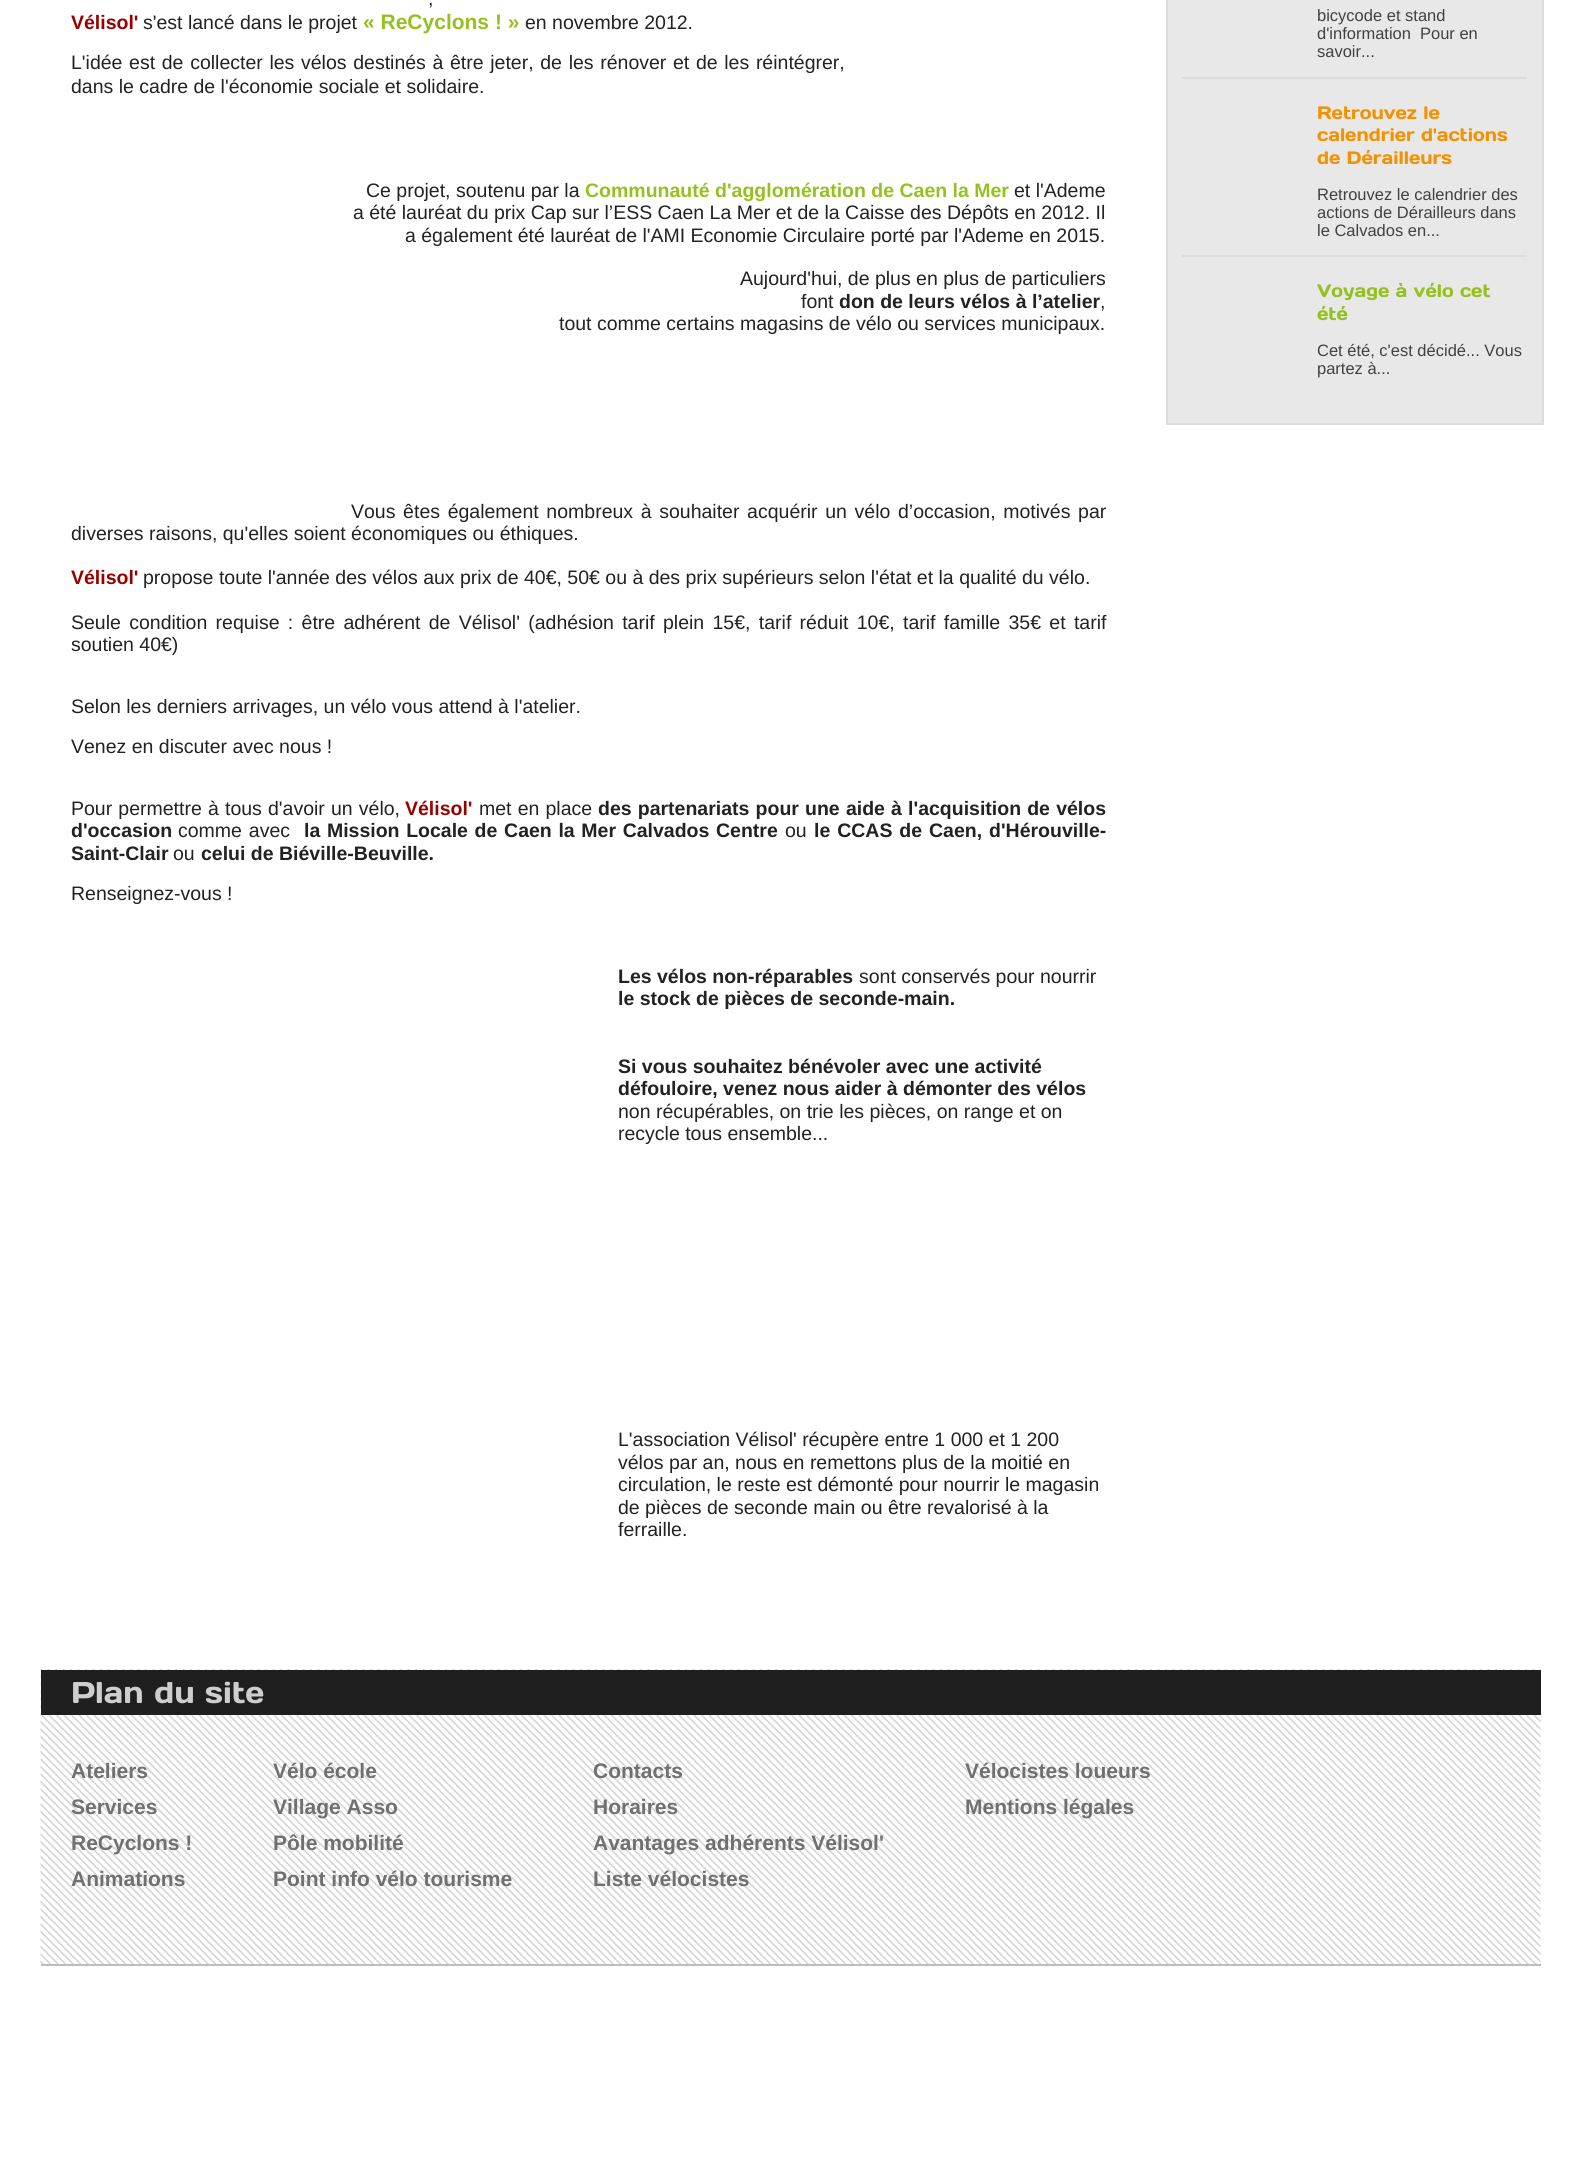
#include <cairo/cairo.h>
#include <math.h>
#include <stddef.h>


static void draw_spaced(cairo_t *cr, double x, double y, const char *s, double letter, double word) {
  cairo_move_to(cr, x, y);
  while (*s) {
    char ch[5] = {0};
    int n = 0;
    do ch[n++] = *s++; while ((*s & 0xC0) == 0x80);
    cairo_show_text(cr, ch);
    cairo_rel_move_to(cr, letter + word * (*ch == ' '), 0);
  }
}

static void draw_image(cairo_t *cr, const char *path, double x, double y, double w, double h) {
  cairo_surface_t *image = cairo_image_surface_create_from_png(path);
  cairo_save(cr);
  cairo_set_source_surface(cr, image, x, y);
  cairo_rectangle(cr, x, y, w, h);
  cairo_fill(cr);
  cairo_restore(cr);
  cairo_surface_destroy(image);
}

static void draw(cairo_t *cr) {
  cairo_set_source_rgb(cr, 1, 1, 1);
  cairo_paint(cr);
  cairo_set_source_rgb(cr, 232 / 255.0, 232 / 255.0, 232 / 255.0);
  cairo_rectangle(cr, 1167, -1, 376, 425);
  cairo_fill_preserve(cr);
  cairo_set_source_rgb(cr, 220 / 255.0, 220 / 255.0, 220 / 255.0);
  cairo_stroke(cr);
  cairo_rectangle(cr, 1182, 77, 345, 2);
  cairo_fill(cr);
  cairo_rectangle(cr, 1182, 255, 345, 2);
  cairo_fill(cr);
  draw_image(cr, "images/1.png", 40, 1669, 1501, 295);
  cairo_set_source_rgb(cr, 188 / 255.0, 188 / 255.0, 188 / 255.0);
  cairo_rectangle(cr, 41, 1964, 1500, 2);
  cairo_fill(cr);
  cairo_set_source_rgb(cr, 31 / 255.0, 31 / 255.0, 31 / 255.0);
  cairo_rectangle(cr, 41, 1670, 1500, 45);
  cairo_fill(cr);
  cairo_select_font_face(cr, "Liberation Sans", CAIRO_FONT_SLANT_NORMAL, CAIRO_FONT_WEIGHT_NORMAL);
  cairo_set_font_size(cr, 19.5);
  cairo_set_source_rgb(cr, 34 / 255.0, 34 / 255.0, 34 / 255.0);
  cairo_move_to(cr, 428, 5);
  cairo_show_text(cr, ",");
  cairo_select_font_face(cr, "Liberation Sans", CAIRO_FONT_SLANT_NORMAL, CAIRO_FONT_WEIGHT_BOLD);
  cairo_set_source_rgb(cr, 153 / 255.0, 0, 0);
  cairo_move_to(cr, 71, 29);
  cairo_show_text(cr, "Vélisol'");
  cairo_select_font_face(cr, "Liberation Sans", CAIRO_FONT_SLANT_NORMAL, CAIRO_FONT_WEIGHT_NORMAL);
  cairo_set_source_rgb(cr, 34 / 255.0, 34 / 255.0, 34 / 255.0);
  cairo_move_to(cr, 143, 29);
  cairo_show_text(cr, "s'est lancé dans le projet");
  cairo_select_font_face(cr, "Liberation Sans", CAIRO_FONT_SLANT_NORMAL, CAIRO_FONT_WEIGHT_BOLD);
  cairo_set_font_size(cr, 21);
  cairo_set_source_rgb(cr, 148 / 255.0, 193 / 255.0, 31 / 255.0);
  cairo_move_to(cr, 363, 29);
  cairo_show_text(cr, "« ReCyclons ! »");
  cairo_select_font_face(cr, "Liberation Sans", CAIRO_FONT_SLANT_NORMAL, CAIRO_FONT_WEIGHT_NORMAL);
  cairo_set_font_size(cr, 19.5);
  cairo_set_source_rgb(cr, 34 / 255.0, 34 / 255.0, 34 / 255.0);
  cairo_move_to(cr, 525, 29);
  cairo_show_text(cr, "en novembre 2012.");
  draw_spaced(cr, 71, 69, "L'idée est de collecter les vélos destinés à être jeter, de les rénover et de les réintégrer,", 0, 1.25);
  cairo_move_to(cr, 71, 93);
  cairo_show_text(cr, "dans le cadre de l'économie sociale et solidaire.");
  cairo_move_to(cr, 366, 197);
  cairo_show_text(cr, "Ce projet, soutenu par la");
  cairo_select_font_face(cr, "Liberation Sans", CAIRO_FONT_SLANT_NORMAL, CAIRO_FONT_WEIGHT_BOLD);
  cairo_set_source_rgb(cr, 148 / 255.0, 193 / 255.0, 31 / 255.0);
  cairo_move_to(cr, 585, 197);
  cairo_show_text(cr, "Communauté d'agglomération de Caen la Mer");
  cairo_select_font_face(cr, "Liberation Sans", CAIRO_FONT_SLANT_NORMAL, CAIRO_FONT_WEIGHT_NORMAL);
  cairo_set_source_rgb(cr, 34 / 255.0, 34 / 255.0, 34 / 255.0);
  cairo_move_to(cr, 1014, 197);
  cairo_show_text(cr, "et l'Ademe");
  cairo_move_to(cr, 353, 219);
  cairo_show_text(cr, "a été lauréat du prix Cap sur l’ESS Caen La Mer et de la Caisse des Dépôts en 2012. Il");
  cairo_move_to(cr, 405, 242);
  cairo_show_text(cr, "a également été lauréat de l'AMI Economie Circulaire porté par l'Ademe en 2015.");
  cairo_move_to(cr, 740, 285);
  cairo_show_text(cr, "Aujourd'hui, de plus en plus de particuliers");
  cairo_move_to(cr, 801, 308);
  cairo_show_text(cr, "font");
  cairo_select_font_face(cr, "Liberation Sans", CAIRO_FONT_SLANT_NORMAL, CAIRO_FONT_WEIGHT_BOLD);
  cairo_move_to(cr, 839, 308);
  cairo_show_text(cr, "don de leurs vélos à l’atelier");
  cairo_select_font_face(cr, "Liberation Sans", CAIRO_FONT_SLANT_NORMAL, CAIRO_FONT_WEIGHT_NORMAL);
  cairo_move_to(cr, 1100, 308);
  cairo_show_text(cr, ",");
  cairo_move_to(cr, 559, 330);
  cairo_show_text(cr, "tout comme certains magasins de vélo ou services municipaux.");
  draw_spaced(cr, 351, 518, "Vous êtes également nombreux à souhaiter acquérir un vélo d’occasion, motivés par", 0, 2.25);
  cairo_move_to(cr, 71, 540);
  cairo_show_text(cr, "diverses raisons, qu'elles soient économiques ou éthiques.");
  cairo_select_font_face(cr, "Liberation Sans", CAIRO_FONT_SLANT_NORMAL, CAIRO_FONT_WEIGHT_BOLD);
  cairo_set_source_rgb(cr, 153 / 255.0, 0, 0);
  cairo_move_to(cr, 71, 584);
  cairo_show_text(cr, "Vélisol'");
  cairo_select_font_face(cr, "Liberation Sans", CAIRO_FONT_SLANT_NORMAL, CAIRO_FONT_WEIGHT_NORMAL);
  cairo_set_source_rgb(cr, 34 / 255.0, 34 / 255.0, 34 / 255.0);
  cairo_move_to(cr, 143, 584);
  cairo_show_text(cr, "propose toute l'année des vélos aux prix de 40€, 50€ ou à des prix supérieurs selon l'état et la qualité du vélo.");
  draw_spaced(cr, 71, 629, "Seule condition requise : être adhérent de Vélisol' (adhésion tarif plein 15€, tarif réduit 10€, tarif famille 35€ et tarif", 0, 2.9);
  cairo_move_to(cr, 71, 651);
  cairo_show_text(cr, "soutien 40€)");
  cairo_move_to(cr, 71, 713);
  cairo_show_text(cr, "Selon les derniers arrivages, un vélo vous attend à l'atelier.");
  cairo_move_to(cr, 71, 753);
  cairo_show_text(cr, "Venez en discuter avec nous !");
  draw_spaced(cr, 71, 815, "Pour permettre à tous d'avoir un vélo,", 0, 0.75);
  cairo_select_font_face(cr, "Liberation Sans", CAIRO_FONT_SLANT_NORMAL, CAIRO_FONT_WEIGHT_BOLD);
  cairo_set_source_rgb(cr, 153 / 255.0, 0, 0);
  cairo_move_to(cr, 405, 815);
  cairo_show_text(cr, "Vélisol'");
  cairo_select_font_face(cr, "Liberation Sans", CAIRO_FONT_SLANT_NORMAL, CAIRO_FONT_WEIGHT_NORMAL);
  cairo_set_source_rgb(cr, 34 / 255.0, 34 / 255.0, 34 / 255.0);
  draw_spaced(cr, 479, 815, "met en place", 0, 0.75);
  cairo_select_font_face(cr, "Liberation Sans", CAIRO_FONT_SLANT_NORMAL, CAIRO_FONT_WEIGHT_BOLD);
  draw_spaced(cr, 598, 815, "des partenariats pour une aide à l'acquisition de vélos", 0, 0.75);
  cairo_move_to(cr, 71, 837);
  cairo_show_text(cr, "d'occasion");
  cairo_select_font_face(cr, "Liberation Sans", CAIRO_FONT_SLANT_NORMAL, CAIRO_FONT_WEIGHT_NORMAL);
  draw_spaced(cr, 178, 837, "comme avec", 0, 1.5);
  cairo_select_font_face(cr, "Liberation Sans", CAIRO_FONT_SLANT_NORMAL, CAIRO_FONT_WEIGHT_BOLD);
  draw_spaced(cr, 304, 837, "la Mission Locale de Caen la Mer Calvados Centre", 0, 1.25);
  cairo_select_font_face(cr, "Liberation Sans", CAIRO_FONT_SLANT_NORMAL, CAIRO_FONT_WEIGHT_NORMAL);
  cairo_move_to(cr, 785, 837);
  cairo_show_text(cr, "ou");
  cairo_select_font_face(cr, "Liberation Sans", CAIRO_FONT_SLANT_NORMAL, CAIRO_FONT_WEIGHT_BOLD);
  draw_spaced(cr, 814, 837, "le CCAS de Caen, d'Hérouville-", 0, 1.5);
  cairo_move_to(cr, 71, 860);
  cairo_show_text(cr, "Saint-Clair");
  cairo_select_font_face(cr, "Liberation Sans", CAIRO_FONT_SLANT_NORMAL, CAIRO_FONT_WEIGHT_NORMAL);
  cairo_move_to(cr, 173, 860);
  cairo_show_text(cr, "ou");
  cairo_select_font_face(cr, "Liberation Sans", CAIRO_FONT_SLANT_NORMAL, CAIRO_FONT_WEIGHT_BOLD);
  cairo_move_to(cr, 201, 860);
  cairo_show_text(cr, "celui de Biéville-Beuville.");
  cairo_select_font_face(cr, "Liberation Sans", CAIRO_FONT_SLANT_NORMAL, CAIRO_FONT_WEIGHT_NORMAL);
  cairo_move_to(cr, 71, 900);
  cairo_show_text(cr, "Renseignez-vous !");
  cairo_select_font_face(cr, "Liberation Sans", CAIRO_FONT_SLANT_NORMAL, CAIRO_FONT_WEIGHT_BOLD);
  cairo_move_to(cr, 618, 983);
  cairo_show_text(cr, "Les vélos non-réparables");
  cairo_select_font_face(cr, "Liberation Sans", CAIRO_FONT_SLANT_NORMAL, CAIRO_FONT_WEIGHT_NORMAL);
  cairo_move_to(cr, 859, 983);
  cairo_show_text(cr, "sont conservés pour nourrir");
  cairo_select_font_face(cr, "Liberation Sans", CAIRO_FONT_SLANT_NORMAL, CAIRO_FONT_WEIGHT_BOLD);
  cairo_move_to(cr, 618, 1005);
  cairo_show_text(cr, "le stock de pièces de seconde-main.");
  cairo_move_to(cr, 618, 1073);
  cairo_show_text(cr, "Si vous souhaitez bénévoler avec une activité");
  cairo_move_to(cr, 618, 1095);
  cairo_show_text(cr, "défouloire, venez nous aider à démonter des vélos");
  cairo_select_font_face(cr, "Liberation Sans", CAIRO_FONT_SLANT_NORMAL, CAIRO_FONT_WEIGHT_NORMAL);
  cairo_move_to(cr, 618, 1118);
  cairo_show_text(cr, "non récupérables, on trie les pièces, on range et on");
  cairo_move_to(cr, 618, 1140);
  cairo_show_text(cr, "recycle tous ensemble...");
  cairo_move_to(cr, 618, 1446);
  cairo_show_text(cr, "L'association Vélisol' récupère entre 1 000 et 1 200");
  cairo_move_to(cr, 618, 1469);
  cairo_show_text(cr, "vélos par an, nous en remettons plus de la moitié en");
  cairo_move_to(cr, 618, 1491);
  cairo_show_text(cr, "circulation, le reste est démonté pour nourrir le magasin");
  cairo_move_to(cr, 618, 1514);
  cairo_show_text(cr, "de pièces de seconde main ou être revalorisé à la");
  cairo_move_to(cr, 618, 1536);
  cairo_show_text(cr, "ferraille.");
  cairo_set_font_size(cr, 16.5);
  cairo_set_source_rgb(cr, 65 / 255.0, 65 / 255.0, 65 / 255.0);
  cairo_move_to(cr, 1317, 21);
  cairo_show_text(cr, "bicycode et stand");
  cairo_move_to(cr, 1317, 39);
  cairo_show_text(cr, "d'information");
  cairo_move_to(cr, 1420, 39);
  cairo_show_text(cr, "Pour en");
  cairo_move_to(cr, 1317, 57);
  cairo_show_text(cr, "savoir...");
  cairo_select_font_face(cr, "Days One", CAIRO_FONT_SLANT_NORMAL, CAIRO_FONT_WEIGHT_NORMAL);
  cairo_set_font_size(cr, 18);
  cairo_set_source_rgb(cr, 243 / 255.0, 146 / 255.0, 0);
  cairo_move_to(cr, 1317, 119);
  cairo_show_text(cr, "Retrouvez le");
  cairo_move_to(cr, 1317, 141);
  cairo_show_text(cr, "calendrier d'actions");
  cairo_move_to(cr, 1317, 164);
  cairo_show_text(cr, "de Dérailleurs");
  cairo_select_font_face(cr, "Liberation Sans", CAIRO_FONT_SLANT_NORMAL, CAIRO_FONT_WEIGHT_NORMAL);
  cairo_set_font_size(cr, 16.5);
  cairo_set_source_rgb(cr, 65 / 255.0, 65 / 255.0, 65 / 255.0);
  cairo_move_to(cr, 1317, 200);
  cairo_show_text(cr, "Retrouvez le calendrier des");
  cairo_move_to(cr, 1317, 218);
  cairo_show_text(cr, "actions de Dérailleurs dans");
  cairo_move_to(cr, 1317, 236);
  cairo_show_text(cr, "le Calvados en...");
  cairo_select_font_face(cr, "Days One", CAIRO_FONT_SLANT_NORMAL, CAIRO_FONT_WEIGHT_NORMAL);
  cairo_set_font_size(cr, 18);
  cairo_set_source_rgb(cr, 148 / 255.0, 193 / 255.0, 31 / 255.0);
  cairo_move_to(cr, 1317, 297);
  cairo_show_text(cr, "Voyage à vélo cet");
  cairo_move_to(cr, 1317, 320);
  cairo_show_text(cr, "été");
  cairo_select_font_face(cr, "Liberation Sans", CAIRO_FONT_SLANT_NORMAL, CAIRO_FONT_WEIGHT_NORMAL);
  cairo_set_font_size(cr, 16.5);
  cairo_set_source_rgb(cr, 65 / 255.0, 65 / 255.0, 65 / 255.0);
  cairo_move_to(cr, 1317, 356);
  cairo_show_text(cr, "Cet été, c'est décidé... Vous");
  cairo_move_to(cr, 1317, 374);
  cairo_show_text(cr, "partez à...");
  cairo_select_font_face(cr, "Days One", CAIRO_FONT_SLANT_NORMAL, CAIRO_FONT_WEIGHT_NORMAL);
  cairo_set_font_size(cr, 30);
  cairo_set_source_rgb(cr, 206 / 255.0, 206 / 255.0, 206 / 255.0);
  cairo_move_to(cr, 71, 1703);
  cairo_show_text(cr, "Plan du site");
  cairo_select_font_face(cr, "Liberation Sans", CAIRO_FONT_SLANT_NORMAL, CAIRO_FONT_WEIGHT_BOLD);
  cairo_set_font_size(cr, 21);
  cairo_set_source_rgb(cr, 112 / 255.0, 112 / 255.0, 112 / 255.0);
  cairo_move_to(cr, 71, 1778);
  cairo_show_text(cr, "Ateliers");
  cairo_move_to(cr, 71, 1814);
  cairo_show_text(cr, "Services");
  cairo_move_to(cr, 71, 1850);
  cairo_show_text(cr, "ReCyclons !");
  cairo_move_to(cr, 71, 1886);
  cairo_show_text(cr, "Animations");
  cairo_move_to(cr, 273, 1778);
  cairo_show_text(cr, "Vélo école");
  cairo_move_to(cr, 273, 1814);
  cairo_show_text(cr, "Village Asso");
  cairo_move_to(cr, 273, 1850);
  cairo_show_text(cr, "Pôle mobilité");
  cairo_move_to(cr, 273, 1886);
  cairo_show_text(cr, "Point info vélo tourisme");
  cairo_move_to(cr, 593, 1778);
  cairo_show_text(cr, "Contacts");
  cairo_move_to(cr, 593, 1814);
  cairo_show_text(cr, "Horaires");
  cairo_move_to(cr, 593, 1850);
  cairo_show_text(cr, "Avantages adhérents Vélisol'");
  cairo_move_to(cr, 593, 1886);
  cairo_show_text(cr, "Liste vélocistes");
  cairo_move_to(cr, 965, 1778);
  cairo_show_text(cr, "Vélocistes loueurs");
  cairo_move_to(cr, 965, 1814);
  cairo_show_text(cr, "Mentions légales");
}

int main(void) {
  cairo_surface_t *surface = cairo_image_surface_create(CAIRO_FORMAT_RGB24, 1581, 2173);
  cairo_t *cr = cairo_create(surface);
  cairo_font_options_t *options = cairo_font_options_create();
  cairo_font_options_set_hint_metrics(options, CAIRO_HINT_METRICS_OFF);
  cairo_font_options_set_hint_style(options, CAIRO_HINT_STYLE_NONE);
  cairo_set_font_options(cr, options);
  cairo_set_miter_limit(cr, 4);
  draw(cr);
  cairo_surface_write_to_png(surface, "out.png");
  cairo_font_options_destroy(options);
  cairo_destroy(cr);
  cairo_surface_destroy(surface);
  return 0;
}
